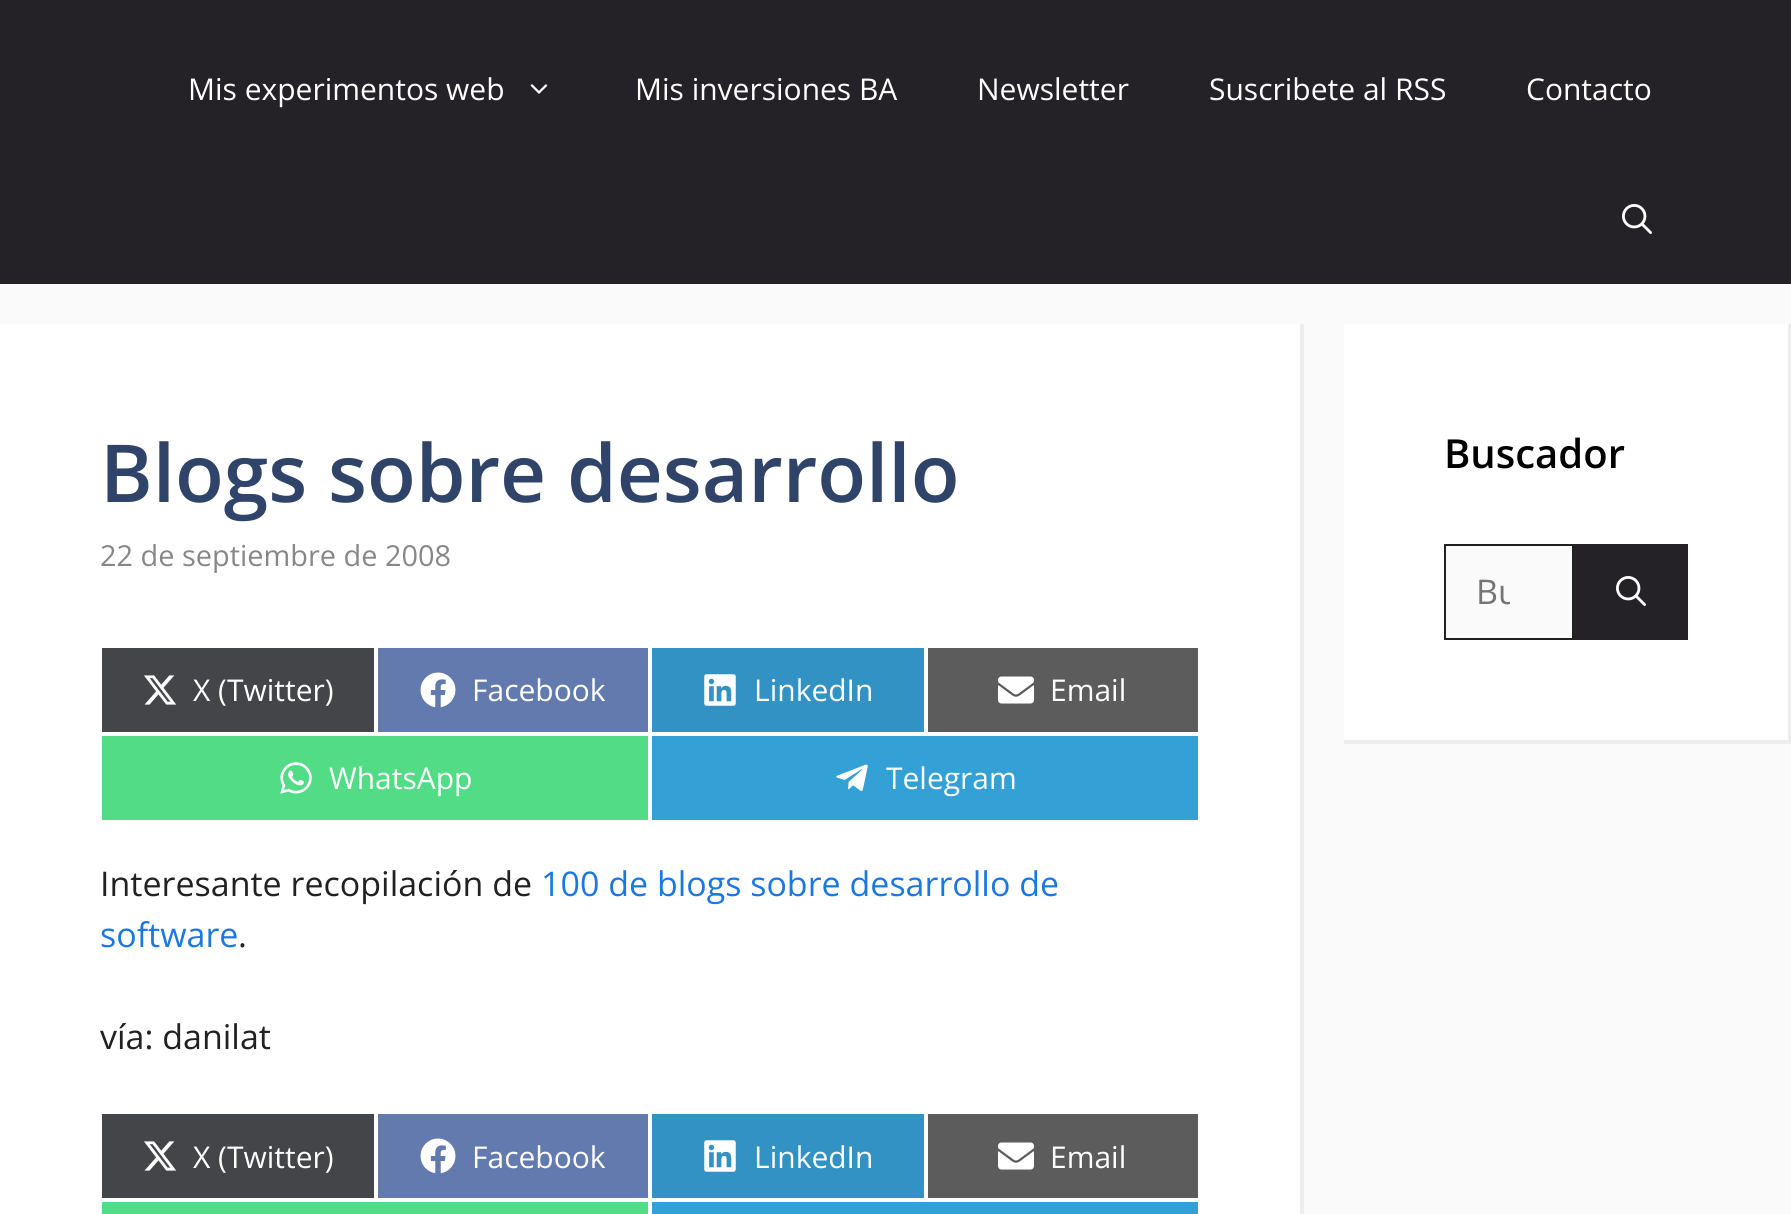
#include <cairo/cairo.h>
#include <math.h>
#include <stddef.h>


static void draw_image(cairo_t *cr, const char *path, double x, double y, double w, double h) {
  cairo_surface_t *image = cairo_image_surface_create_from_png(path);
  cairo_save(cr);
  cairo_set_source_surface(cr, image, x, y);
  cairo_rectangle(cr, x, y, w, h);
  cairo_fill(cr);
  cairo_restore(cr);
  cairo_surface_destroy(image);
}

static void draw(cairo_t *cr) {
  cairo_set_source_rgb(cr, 250 / 255.0, 250 / 255.0, 250 / 255.0);
  cairo_paint(cr);
  cairo_set_source_rgb(cr, 36 / 255.0, 34 / 255.0, 38 / 255.0);
  cairo_rectangle(cr, 0, 0, 1791, 284);
  cairo_fill(cr);
  draw_image(cr, "images/1.png", 530, 84, 18, 10);
  draw_image(cr, "images/2.png", 1622, 204, 30, 30);
  cairo_set_source_rgb(cr, 1, 1, 1);
  cairo_rectangle(cr, 0, 324, 1300, 890);
  cairo_fill(cr);
  cairo_set_source_rgb(cr, 237 / 255.0, 237 / 255.0, 237 / 255.0);
  cairo_new_path(cr);
  cairo_move_to(cr, 1304, 324);
  cairo_line_to(cr, 1304, 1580);
  cairo_line_to(cr, 1300, 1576);
  cairo_line_to(cr, 1300, 324);
  cairo_close_path(cr);
  cairo_fill(cr);
  cairo_set_source_rgb(cr, 67 / 255.0, 69 / 255.0, 72 / 255.0);
  cairo_rectangle(cr, 102, 648, 272, 84);
  cairo_fill(cr);
  draw_image(cr, "images/3.png", 144, 675, 33, 30);
  cairo_set_source_rgb(cr, 98 / 255.0, 122 / 255.0, 173 / 255.0);
  cairo_rectangle(cr, 378, 648, 270, 84);
  cairo_fill(cr);
  draw_image(cr, "images/4.png", 420, 672, 36, 36);
  cairo_set_source_rgb(cr, 51 / 255.0, 146 / 255.0, 196 / 255.0);
  cairo_rectangle(cr, 652, 648, 272, 84);
  cairo_fill(cr);
  draw_image(cr, "images/5.png", 704, 674, 32, 32);
  cairo_set_source_rgb(cr, 92 / 255.0, 92 / 255.0, 92 / 255.0);
  cairo_rectangle(cr, 928, 648, 270, 84);
  cairo_fill(cr);
  draw_image(cr, "images/6.png", 998, 676, 36, 28);
  cairo_set_source_rgb(cr, 81 / 255.0, 220 / 255.0, 133 / 255.0);
  cairo_rectangle(cr, 102, 736, 546, 84);
  cairo_fill(cr);
  draw_image(cr, "images/7.png", 280, 762, 32, 32);
  cairo_set_source_rgb(cr, 51 / 255.0, 160 / 255.0, 214 / 255.0);
  cairo_rectangle(cr, 652, 736, 546, 84);
  cairo_fill(cr);
  draw_image(cr, "images/8.png", 836, 764, 32, 27);
  cairo_set_source_rgb(cr, 67 / 255.0, 69 / 255.0, 72 / 255.0);
  cairo_rectangle(cr, 102, 1114, 272, 84);
  cairo_fill(cr);
  draw_image(cr, "images/3.png", 144, 1141, 33, 30);
  cairo_set_source_rgb(cr, 98 / 255.0, 122 / 255.0, 173 / 255.0);
  cairo_rectangle(cr, 378, 1114, 270, 84);
  cairo_fill(cr);
  draw_image(cr, "images/4.png", 420, 1138, 36, 36);
  cairo_set_source_rgb(cr, 51 / 255.0, 146 / 255.0, 196 / 255.0);
  cairo_rectangle(cr, 652, 1114, 272, 84);
  cairo_fill(cr);
  draw_image(cr, "images/5.png", 704, 1140, 32, 32);
  cairo_set_source_rgb(cr, 92 / 255.0, 92 / 255.0, 92 / 255.0);
  cairo_rectangle(cr, 928, 1114, 270, 84);
  cairo_fill(cr);
  draw_image(cr, "images/6.png", 998, 1142, 36, 28);
  cairo_set_source_rgb(cr, 81 / 255.0, 220 / 255.0, 133 / 255.0);
  cairo_rectangle(cr, 102, 1202, 546, 12);
  cairo_fill(cr);
  cairo_set_source_rgb(cr, 51 / 255.0, 160 / 255.0, 214 / 255.0);
  cairo_rectangle(cr, 652, 1202, 546, 12);
  cairo_fill(cr);
  cairo_set_source_rgb(cr, 1, 1, 1);
  cairo_rectangle(cr, 1344, 324, 447, 420);
  cairo_fill(cr);
  cairo_set_source_rgb(cr, 237 / 255.0, 237 / 255.0, 237 / 255.0);
  cairo_new_path(cr);
  cairo_move_to(cr, 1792, 324);
  cairo_line_to(cr, 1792, 744);
  cairo_line_to(cr, 1788, 740);
  cairo_line_to(cr, 1788, 324);
  cairo_close_path(cr);
  cairo_fill(cr);
  cairo_set_source_rgba(cr, 0, 0, 0, 0.07);
  cairo_new_path(cr);
  cairo_move_to(cr, 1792, 744);
  cairo_line_to(cr, 1344, 744);
  cairo_line_to(cr, 1344, 740);
  cairo_line_to(cr, 1788, 740);
  cairo_close_path(cr);
  cairo_fill(cr);
  cairo_set_source_rgb(cr, 250 / 255.0, 250 / 255.0, 250 / 255.0);
  cairo_rectangle(cr, 1445, 545, 128, 94);
  cairo_fill_preserve(cr);
  cairo_set_source_rgb(cr, 33 / 255.0, 33 / 255.0, 33 / 255.0);
  cairo_stroke(cr);
  cairo_set_source_rgb(cr, 36 / 255.0, 34 / 255.0, 38 / 255.0);
  cairo_rectangle(cr, 1574, 544, 114, 96);
  cairo_fill(cr);
  draw_image(cr, "images/2.png", 1616, 576, 30, 30);
  cairo_select_font_face(cr, "Open Sans", CAIRO_FONT_SLANT_NORMAL, CAIRO_FONT_WEIGHT_NORMAL);
  cairo_set_font_size(cr, 30);
  cairo_set_source_rgb(cr, 1, 1, 1);
  cairo_move_to(cr, 188, 100);
  cairo_show_text(cr, "Mis experimentos web");
  cairo_move_to(cr, 635, 100);
  cairo_show_text(cr, "Mis inversiones BA");
  cairo_move_to(cr, 977, 100);
  cairo_show_text(cr, "Newsletter");
  cairo_move_to(cr, 1209, 100);
  cairo_show_text(cr, "Suscribete al RSS");
  cairo_move_to(cr, 1526, 100);
  cairo_show_text(cr, "Contacto");
  cairo_select_font_face(cr, "Open Sans SemiBold", CAIRO_FONT_SLANT_NORMAL, CAIRO_FONT_WEIGHT_NORMAL);
  cairo_set_font_size(cr, 80);
  cairo_set_source_rgb(cr, 47 / 255.0, 68 / 255.0, 104 / 255.0);
  cairo_move_to(cr, 100, 502);
  cairo_show_text(cr, "Blogs sobre desarrollo");
  cairo_select_font_face(cr, "Open Sans", CAIRO_FONT_SLANT_NORMAL, CAIRO_FONT_WEIGHT_NORMAL);
  cairo_set_font_size(cr, 28.9);
  cairo_set_source_rgb(cr, 135 / 255.0, 135 / 255.0, 135 / 255.0);
  cairo_move_to(cr, 100, 566);
  cairo_show_text(cr, "22 de septiembre de 2008");
  cairo_set_font_size(cr, 30);
  cairo_set_source_rgb(cr, 1, 1, 1);
  cairo_move_to(cr, 193, 701);
  cairo_show_text(cr, "X (Twitter)");
  cairo_move_to(cr, 472, 701);
  cairo_show_text(cr, "Facebook");
  cairo_move_to(cr, 754, 701);
  cairo_show_text(cr, "LinkedIn");
  cairo_move_to(cr, 1050, 701);
  cairo_show_text(cr, "Email");
  cairo_move_to(cr, 329, 789);
  cairo_show_text(cr, "WhatsApp");
  cairo_move_to(cr, 886, 789);
  cairo_show_text(cr, "Telegram");
  cairo_set_font_size(cr, 34);
  cairo_set_source_rgb(cr, 33 / 255.0, 33 / 255.0, 33 / 255.0);
  cairo_move_to(cr, 100, 896);
  cairo_show_text(cr, "Interesante recopilación de");
  cairo_set_source_rgb(cr, 27 / 255.0, 120 / 255.0, 226 / 255.0);
  cairo_move_to(cr, 541, 896);
  cairo_show_text(cr, "100 de blogs sobre desarrollo de");
  cairo_move_to(cr, 100, 947);
  cairo_show_text(cr, "software");
  cairo_set_source_rgb(cr, 33 / 255.0, 33 / 255.0, 33 / 255.0);
  cairo_move_to(cr, 238, 947);
  cairo_show_text(cr, ".");
  cairo_move_to(cr, 100, 1049);
  cairo_show_text(cr, "vía: danilat");
  cairo_set_font_size(cr, 30);
  cairo_set_source_rgb(cr, 1, 1, 1);
  cairo_move_to(cr, 193, 1168);
  cairo_show_text(cr, "X (Twitter)");
  cairo_move_to(cr, 472, 1168);
  cairo_show_text(cr, "Facebook");
  cairo_move_to(cr, 754, 1168);
  cairo_show_text(cr, "LinkedIn");
  cairo_move_to(cr, 1050, 1168);
  cairo_show_text(cr, "Email");
  cairo_select_font_face(cr, "Open Sans SemiBold", CAIRO_FONT_SLANT_NORMAL, CAIRO_FONT_WEIGHT_NORMAL);
  cairo_set_font_size(cr, 40);
  cairo_set_source_rgb(cr, 0, 0, 0);
  cairo_move_to(cr, 1444, 468);
  cairo_show_text(cr, "Buscador");
  cairo_save(cr);
  cairo_rectangle(cr, 1476, 568, 34, 46);
  cairo_clip(cr);
  cairo_select_font_face(cr, "Open Sans", CAIRO_FONT_SLANT_NORMAL, CAIRO_FONT_WEIGHT_NORMAL);
  cairo_set_font_size(cr, 34);
  cairo_set_source_rgb(cr, 117 / 255.0, 117 / 255.0, 117 / 255.0);
  cairo_move_to(cr, 1476, 604);
  cairo_show_text(cr, "Bu");
  cairo_restore(cr);
}

int main(void) {
  cairo_surface_t *surface = cairo_image_surface_create(CAIRO_FORMAT_RGB24, 1791, 1214);
  cairo_t *cr = cairo_create(surface);
  cairo_font_options_t *options = cairo_font_options_create();
  cairo_font_options_set_hint_metrics(options, CAIRO_HINT_METRICS_OFF);
  cairo_font_options_set_hint_style(options, CAIRO_HINT_STYLE_NONE);
  cairo_set_font_options(cr, options);
  cairo_set_miter_limit(cr, 4);
  draw(cr);
  cairo_surface_write_to_png(surface, "out.png");
  cairo_font_options_destroy(options);
  cairo_destroy(cr);
  cairo_surface_destroy(surface);
  return 0;
}
